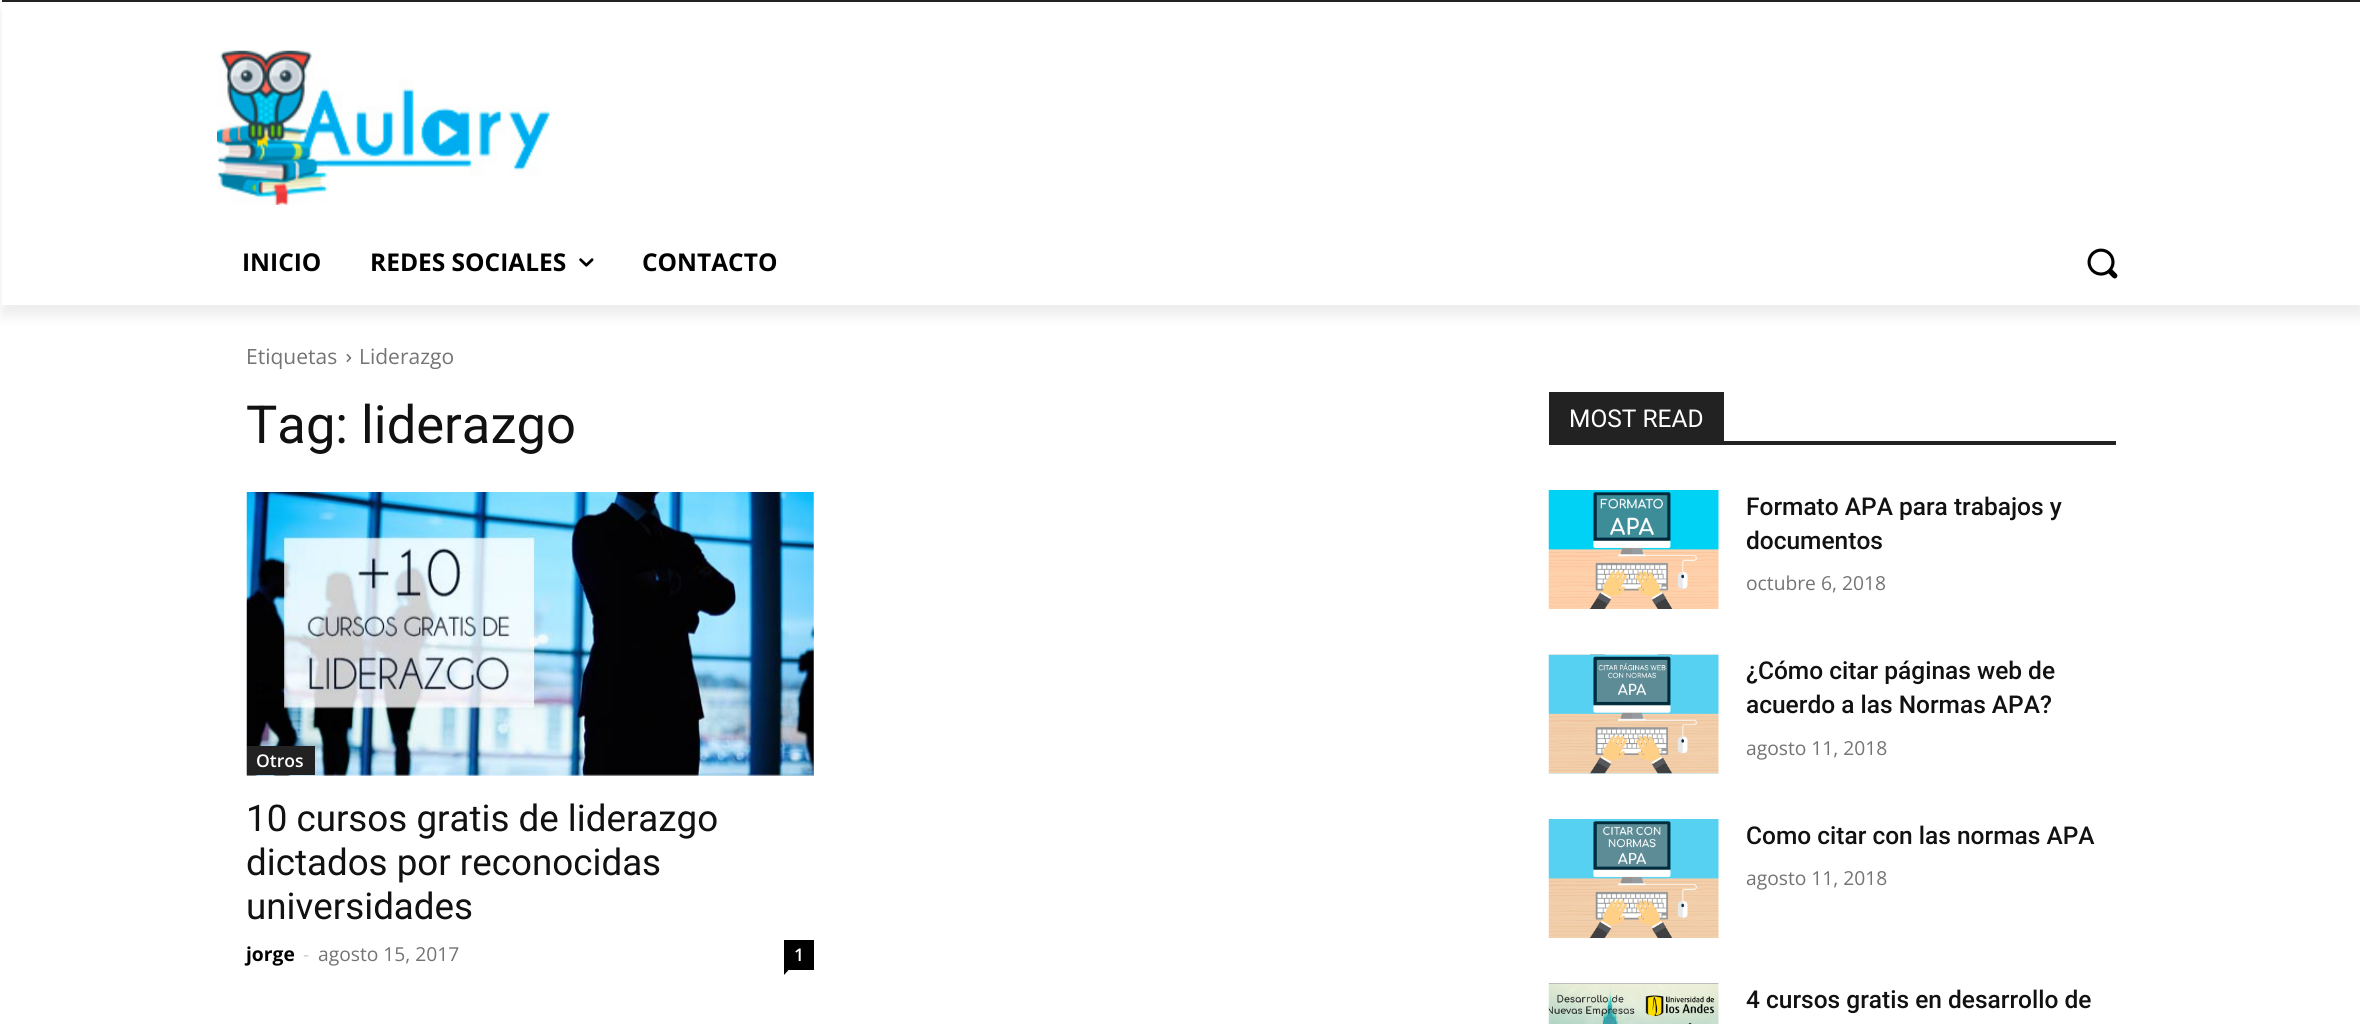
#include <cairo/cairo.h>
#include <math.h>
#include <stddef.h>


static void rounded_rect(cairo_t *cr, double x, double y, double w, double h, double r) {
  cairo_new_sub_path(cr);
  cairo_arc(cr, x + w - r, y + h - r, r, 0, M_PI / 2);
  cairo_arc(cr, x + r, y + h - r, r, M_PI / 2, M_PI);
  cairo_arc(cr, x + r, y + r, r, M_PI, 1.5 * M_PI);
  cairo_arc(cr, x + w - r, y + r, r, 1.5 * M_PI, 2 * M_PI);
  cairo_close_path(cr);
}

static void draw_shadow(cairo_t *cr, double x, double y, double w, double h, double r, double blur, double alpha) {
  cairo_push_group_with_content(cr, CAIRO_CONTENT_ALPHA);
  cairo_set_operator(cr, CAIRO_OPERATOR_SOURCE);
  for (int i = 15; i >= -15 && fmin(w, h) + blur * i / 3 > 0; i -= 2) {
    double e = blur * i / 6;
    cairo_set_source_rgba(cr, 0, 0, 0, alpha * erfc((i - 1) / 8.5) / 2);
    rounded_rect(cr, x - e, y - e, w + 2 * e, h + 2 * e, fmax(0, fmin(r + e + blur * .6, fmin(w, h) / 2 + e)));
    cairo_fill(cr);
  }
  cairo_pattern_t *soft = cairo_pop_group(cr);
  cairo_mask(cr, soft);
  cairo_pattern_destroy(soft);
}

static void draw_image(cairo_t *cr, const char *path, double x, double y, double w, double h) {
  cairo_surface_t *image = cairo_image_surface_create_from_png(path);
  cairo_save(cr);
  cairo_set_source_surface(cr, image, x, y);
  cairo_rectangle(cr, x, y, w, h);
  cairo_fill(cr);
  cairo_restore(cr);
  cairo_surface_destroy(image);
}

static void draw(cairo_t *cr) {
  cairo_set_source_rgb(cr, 1, 1, 1);
  cairo_paint(cr);
  cairo_set_source_rgb(cr, 34 / 255.0, 34 / 255.0, 34 / 255.0);
  cairo_rectangle(cr, 2, 0, 2358, 2);
  cairo_fill(cr);
  draw_image(cr, "images/1.png", 217, 50, 333, 155);
  cairo_save(cr);
  cairo_set_fill_rule(cr, CAIRO_FILL_RULE_EVEN_ODD);
  cairo_new_path(cr);
  cairo_move_to(cr, 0, 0);
  cairo_line_to(cr, 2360, 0);
  cairo_line_to(cr, 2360, 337);
  cairo_line_to(cr, 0, 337);
  cairo_close_path(cr);
  cairo_move_to(cr, 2, 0);
  cairo_line_to(cr, 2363, 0);
  cairo_line_to(cr, 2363, 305);
  cairo_line_to(cr, 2, 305);
  cairo_close_path(cr);
  cairo_clip(cr);
  cairo_set_source_rgb(cr, 0, 0, 0);
  draw_shadow(cr, 2, 11, 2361, 304, 0, 7, 0.08);
  cairo_restore(cr);
  draw_image(cr, "images/2.png", 579, 258, 15, 9);
  draw_image(cr, "images/3.png", 2087, 248, 31, 31);
  draw_image(cr, "images/4.png", 346, 354, 6, 8);
  draw_image(cr, "images/5.png", 246, 492, 568, 284);
  cairo_rectangle(cr, 247, 746, 68, 29);
  cairo_fill(cr);
  cairo_set_source_rgb(cr, 0, 0, 0);
  cairo_rectangle(cr, 784, 940, 30, 30);
  cairo_fill(cr);
  cairo_new_path(cr);
  cairo_move_to(cr, 784, 969.5);
  cairo_line_to(cr, 789, 969.5);
  cairo_line_to(cr, 784, 975);
  cairo_close_path(cr);
  cairo_fill(cr);
  cairo_set_source_rgb(cr, 34 / 255.0, 34 / 255.0, 34 / 255.0);
  cairo_rectangle(cr, 1549, 441, 567, 4);
  cairo_fill(cr);
  cairo_rectangle(cr, 1549, 392, 175, 49);
  cairo_fill(cr);
  draw_image(cr, "images/6.png", 1548, 490, 171, 119);
  draw_image(cr, "images/7.png", 1548, 654, 171, 120);
  draw_image(cr, "images/8.png", 1548, 819, 171, 119);
  draw_image(cr, "images/9.png", 1548, 983, 171, 41);
  cairo_select_font_face(cr, "Open Sans", CAIRO_FONT_SLANT_NORMAL, CAIRO_FONT_WEIGHT_BOLD);
  cairo_set_font_size(cr, 24.5);
  cairo_set_source_rgb(cr, 0, 0, 0);
  cairo_move_to(cr, 242, 271);
  cairo_show_text(cr, "INICIO");
  cairo_move_to(cr, 370, 271);
  cairo_show_text(cr, "REDES SOCIALES");
  cairo_move_to(cr, 642, 271);
  cairo_show_text(cr, "CONTACTO");
  cairo_select_font_face(cr, "Open Sans", CAIRO_FONT_SLANT_NORMAL, CAIRO_FONT_WEIGHT_NORMAL);
  cairo_set_font_size(cr, 21);
  cairo_set_source_rgb(cr, 116 / 255.0, 116 / 255.0, 116 / 255.0);
  cairo_move_to(cr, 246, 364);
  cairo_show_text(cr, "Etiquetas");
  cairo_move_to(cr, 359, 364);
  cairo_show_text(cr, "Liderazgo");
  cairo_select_font_face(cr, "Roboto", CAIRO_FONT_SLANT_NORMAL, CAIRO_FONT_WEIGHT_NORMAL);
  cairo_set_font_size(cr, 52.5);
  cairo_set_source_rgb(cr, 17 / 255.0, 17 / 255.0, 17 / 255.0);
  cairo_move_to(cr, 246, 443);
  cairo_show_text(cr, "Tag: liderazgo");
  cairo_select_font_face(cr, "Open Sans SemiBold", CAIRO_FONT_SLANT_NORMAL, CAIRO_FONT_WEIGHT_NORMAL);
  cairo_set_font_size(cr, 17.5);
  cairo_set_source_rgb(cr, 1, 1, 1);
  cairo_move_to(cr, 256, 767);
  cairo_show_text(cr, "Otros");
  cairo_select_font_face(cr, "Roboto", CAIRO_FONT_SLANT_NORMAL, CAIRO_FONT_WEIGHT_NORMAL);
  cairo_set_font_size(cr, 36.75);
  cairo_set_source_rgb(cr, 17 / 255.0, 17 / 255.0, 17 / 255.0);
  cairo_move_to(cr, 246, 831);
  cairo_show_text(cr, "10 cursos gratis de liderazgo");
  cairo_move_to(cr, 246, 875);
  cairo_show_text(cr, "dictados por reconocidas");
  cairo_move_to(cr, 246, 919);
  cairo_show_text(cr, "universidades");
  cairo_select_font_face(cr, "Open Sans", CAIRO_FONT_SLANT_NORMAL, CAIRO_FONT_WEIGHT_BOLD);
  cairo_set_font_size(cr, 19.25);
  cairo_set_source_rgb(cr, 0, 0, 0);
  cairo_move_to(cr, 246, 961);
  cairo_show_text(cr, "jorge");
  cairo_select_font_face(cr, "Open Sans", CAIRO_FONT_SLANT_NORMAL, CAIRO_FONT_WEIGHT_NORMAL);
  cairo_set_source_rgb(cr, 204 / 255.0, 204 / 255.0, 204 / 255.0);
  cairo_move_to(cr, 303, 961);
  cairo_show_text(cr, "-");
  cairo_set_source_rgb(cr, 116 / 255.0, 116 / 255.0, 116 / 255.0);
  cairo_move_to(cr, 318, 961);
  cairo_show_text(cr, "agosto 15, 2017");
  cairo_select_font_face(cr, "Open Sans SemiBold", CAIRO_FONT_SLANT_NORMAL, CAIRO_FONT_WEIGHT_NORMAL);
  cairo_set_font_size(cr, 17.5);
  cairo_set_source_rgb(cr, 1, 1, 1);
  cairo_move_to(cr, 794, 961);
  cairo_show_text(cr, "1");
  cairo_select_font_face(cr, "Roboto", CAIRO_FONT_SLANT_NORMAL, CAIRO_FONT_WEIGHT_NORMAL);
  cairo_set_font_size(cr, 24.5);
  cairo_move_to(cr, 1569, 427);
  cairo_show_text(cr, "MOST READ");
  cairo_select_font_face(cr, "Roboto Medium", CAIRO_FONT_SLANT_NORMAL, CAIRO_FONT_WEIGHT_NORMAL);
  cairo_set_source_rgb(cr, 17 / 255.0, 17 / 255.0, 17 / 255.0);
  cairo_move_to(cr, 1746, 515);
  cairo_show_text(cr, "Formato APA para trabajos y");
  cairo_move_to(cr, 1746, 549);
  cairo_show_text(cr, "documentos");
  cairo_select_font_face(cr, "Open Sans", CAIRO_FONT_SLANT_NORMAL, CAIRO_FONT_WEIGHT_NORMAL);
  cairo_set_font_size(cr, 19.25);
  cairo_set_source_rgb(cr, 116 / 255.0, 116 / 255.0, 116 / 255.0);
  cairo_move_to(cr, 1746, 590);
  cairo_show_text(cr, "octubre 6, 2018");
  cairo_select_font_face(cr, "Roboto Medium", CAIRO_FONT_SLANT_NORMAL, CAIRO_FONT_WEIGHT_NORMAL);
  cairo_set_font_size(cr, 24.5);
  cairo_set_source_rgb(cr, 17 / 255.0, 17 / 255.0, 17 / 255.0);
  cairo_move_to(cr, 1746, 679);
  cairo_show_text(cr, "¿Cómo citar páginas web de");
  cairo_move_to(cr, 1746, 713);
  cairo_show_text(cr, "acuerdo a las Normas APA?");
  cairo_select_font_face(cr, "Open Sans", CAIRO_FONT_SLANT_NORMAL, CAIRO_FONT_WEIGHT_NORMAL);
  cairo_set_font_size(cr, 19.25);
  cairo_set_source_rgb(cr, 116 / 255.0, 116 / 255.0, 116 / 255.0);
  cairo_move_to(cr, 1746, 755);
  cairo_show_text(cr, "agosto 11, 2018");
  cairo_select_font_face(cr, "Roboto Medium", CAIRO_FONT_SLANT_NORMAL, CAIRO_FONT_WEIGHT_NORMAL);
  cairo_set_font_size(cr, 24.5);
  cairo_set_source_rgb(cr, 17 / 255.0, 17 / 255.0, 17 / 255.0);
  cairo_move_to(cr, 1746, 844);
  cairo_show_text(cr, "Como citar con las normas APA");
  cairo_select_font_face(cr, "Open Sans", CAIRO_FONT_SLANT_NORMAL, CAIRO_FONT_WEIGHT_NORMAL);
  cairo_set_font_size(cr, 19.25);
  cairo_set_source_rgb(cr, 116 / 255.0, 116 / 255.0, 116 / 255.0);
  cairo_move_to(cr, 1746, 885);
  cairo_show_text(cr, "agosto 11, 2018");
  cairo_select_font_face(cr, "Roboto Medium", CAIRO_FONT_SLANT_NORMAL, CAIRO_FONT_WEIGHT_NORMAL);
  cairo_set_font_size(cr, 24.5);
  cairo_set_source_rgb(cr, 17 / 255.0, 17 / 255.0, 17 / 255.0);
  cairo_move_to(cr, 1746, 1008);
  cairo_show_text(cr, "4 cursos gratis en desarrollo de");
}

int main(void) {
  cairo_surface_t *surface = cairo_image_surface_create(CAIRO_FORMAT_RGB24, 2360, 1024);
  cairo_t *cr = cairo_create(surface);
  cairo_font_options_t *options = cairo_font_options_create();
  cairo_font_options_set_hint_metrics(options, CAIRO_HINT_METRICS_OFF);
  cairo_font_options_set_hint_style(options, CAIRO_HINT_STYLE_NONE);
  cairo_set_font_options(cr, options);
  cairo_set_miter_limit(cr, 4);
  draw(cr);
  cairo_surface_write_to_png(surface, "out.png");
  cairo_font_options_destroy(options);
  cairo_destroy(cr);
  cairo_surface_destroy(surface);
  return 0;
}
